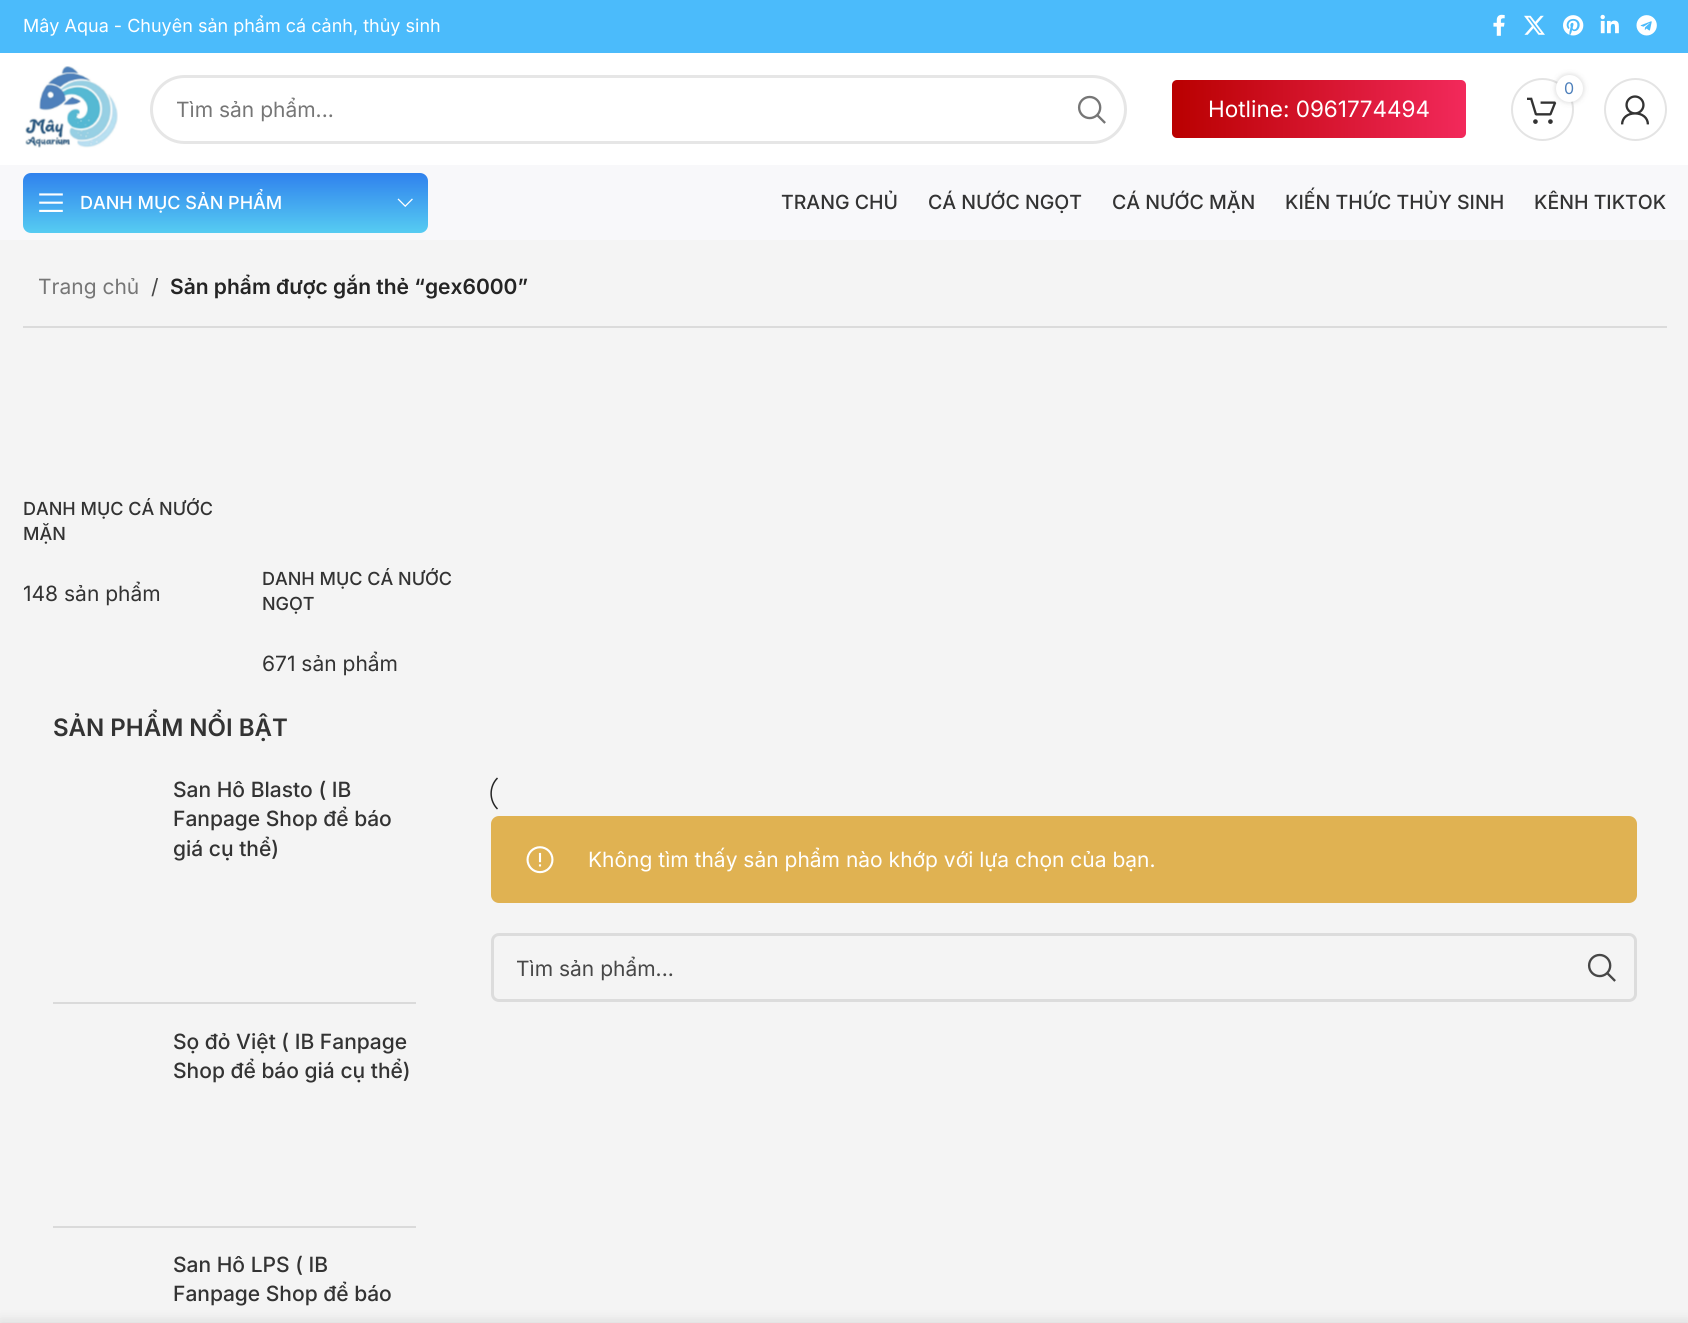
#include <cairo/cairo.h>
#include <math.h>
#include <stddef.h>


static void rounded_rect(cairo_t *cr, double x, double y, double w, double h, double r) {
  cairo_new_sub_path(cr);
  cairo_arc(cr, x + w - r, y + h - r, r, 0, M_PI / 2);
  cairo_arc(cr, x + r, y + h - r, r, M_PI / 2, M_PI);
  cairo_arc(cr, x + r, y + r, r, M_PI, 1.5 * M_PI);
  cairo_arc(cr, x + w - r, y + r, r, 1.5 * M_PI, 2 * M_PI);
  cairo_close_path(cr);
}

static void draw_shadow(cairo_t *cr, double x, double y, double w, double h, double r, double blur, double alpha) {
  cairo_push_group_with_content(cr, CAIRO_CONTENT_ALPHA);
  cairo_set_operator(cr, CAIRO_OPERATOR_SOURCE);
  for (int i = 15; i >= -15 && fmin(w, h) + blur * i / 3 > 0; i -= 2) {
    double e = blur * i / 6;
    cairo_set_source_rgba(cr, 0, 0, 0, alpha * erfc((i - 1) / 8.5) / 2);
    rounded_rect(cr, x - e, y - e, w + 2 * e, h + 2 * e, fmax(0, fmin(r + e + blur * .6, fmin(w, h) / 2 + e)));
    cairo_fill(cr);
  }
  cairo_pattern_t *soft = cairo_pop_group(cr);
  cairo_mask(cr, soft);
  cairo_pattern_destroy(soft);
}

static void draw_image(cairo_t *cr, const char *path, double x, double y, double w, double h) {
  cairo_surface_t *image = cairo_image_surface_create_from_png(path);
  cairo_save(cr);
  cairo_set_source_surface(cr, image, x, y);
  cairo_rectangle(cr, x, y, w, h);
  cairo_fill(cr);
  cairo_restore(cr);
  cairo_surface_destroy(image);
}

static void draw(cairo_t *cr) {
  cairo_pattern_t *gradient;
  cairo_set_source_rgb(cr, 1, 1, 1);
  cairo_paint(cr);
  cairo_set_source_rgb(cr, 75 / 255.0, 187 / 255.0, 251 / 255.0);
  cairo_rectangle(cr, 0, 0, 1688, 53);
  cairo_fill(cr);
  draw_image(cr, "images/1.png", 1493, 14, 12, 22);
  draw_image(cr, "images/2.png", 1524, 15, 21, 20);
  draw_image(cr, "images/3.png", 1563, 15, 21, 21);
  draw_image(cr, "images/4.png", 1600, 14, 19, 20);
  draw_image(cr, "images/5.png", 1636, 15, 21, 21);
  draw_image(cr, "images/6.png", 25, 66, 93, 82);
  rounded_rect(cr, 151.5, 76.5, 974, 66, 33);
  cairo_set_source_rgb(cr, 230 / 255.0, 230 / 255.0, 230 / 255.0);
  cairo_set_line_width(cr, 3);
  cairo_stroke(cr);
  draw_image(cr, "images/7.png", 1077, 95, 29, 29);
  cairo_arc(cr, 1542.5, 109.5, 30.5, 0, 2 * M_PI);
  cairo_set_source_rgb(cr, 228 / 255.0, 228 / 255.0, 228 / 255.0);
  cairo_set_line_width(cr, 2);
  cairo_stroke(cr);
  draw_image(cr, "images/8.png", 1527, 97, 30, 27);
  cairo_set_source_rgb(cr, 0, 0, 0);
  draw_shadow(cr, 1556, 75, 27, 27, 13.5, 3, 0.17);
  cairo_set_source_rgb(cr, 1, 1, 1);
  cairo_arc(cr, 1569.5, 88.5, 13.5, 0, 2 * M_PI);
  cairo_fill(cr);
  cairo_arc(cr, 1635.5, 109.5, 30.5, 0, 2 * M_PI);
  cairo_set_source_rgb(cr, 228 / 255.0, 228 / 255.0, 228 / 255.0);
  cairo_stroke(cr);
  draw_image(cr, "images/9.png", 1621, 95, 28, 30);
  gradient = cairo_pattern_create_linear(1172, 109, 1466, 109);
  cairo_pattern_add_color_stop_rgba(gradient, 0, 185 / 255.0, 0, 0, 1);
  cairo_pattern_add_color_stop_rgba(gradient, 1, 242 / 255.0, 41 / 255.0, 91 / 255.0, 1);
  cairo_set_source(cr, gradient);
  cairo_pattern_destroy(gradient);
  rounded_rect(cr, 1172, 80, 294, 58, 5);
  cairo_fill(cr);
  cairo_set_source_rgb(cr, 248 / 255.0, 248 / 255.0, 250 / 255.0);
  cairo_rectangle(cr, 0, 165, 1688, 75);
  cairo_fill(cr);
  gradient = cairo_pattern_create_linear(225, 172, 225, 233);
  cairo_pattern_add_color_stop_rgba(gradient, 0, 47 / 255.0, 128 / 255.0, 237 / 255.0, 1);
  cairo_pattern_add_color_stop_rgba(gradient, 1, 86 / 255.0, 204 / 255.0, 242 / 255.0, 1);
  cairo_set_source(cr, gradient);
  cairo_pattern_destroy(gradient);
  rounded_rect(cr, 23, 173, 405, 60, 8);
  cairo_fill(cr);
  draw_image(cr, "images/10.png", 39, 193, 24, 19);
  draw_image(cr, "images/11.png", 397, 198, 16, 9);
  cairo_set_source_rgb(cr, 244 / 255.0, 244 / 255.0, 244 / 255.0);
  cairo_rectangle(cr, 0, 240, 1688, 1083);
  cairo_fill(cr);
  cairo_set_source_rgb(cr, 219 / 255.0, 219 / 255.0, 219 / 255.0);
  cairo_rectangle(cr, 23, 326, 1644, 2);
  cairo_fill(cr);
  cairo_set_source_rgb(cr, 218 / 255.0, 218 / 255.0, 218 / 255.0);
  cairo_rectangle(cr, 53, 1002, 363, 2);
  cairo_fill(cr);
  cairo_rectangle(cr, 53, 1226, 363, 2);
  cairo_fill(cr);
  cairo_new_path(cr);
  cairo_move_to(cr, 497.5, 809);
  cairo_curve_to(cr, 489, 800.5, 489, 786.5, 497.5, 778);
  cairo_set_source_rgb(cr, 36 / 255.0, 36 / 255.0, 36 / 255.0);
  cairo_set_line_width(cr, 1.5);
  cairo_stroke(cr);
  cairo_set_source_rgb(cr, 224 / 255.0, 178 / 255.0, 82 / 255.0);
  rounded_rect(cr, 491, 816, 1146, 87, 8);
  cairo_fill(cr);
  draw_image(cr, "images/12.png", 526, 846, 28, 28);
  rounded_rect(cr, 492.5, 934.5, 1143, 66, 6.5);
  cairo_set_source_rgb(cr, 220 / 255.0, 220 / 255.0, 220 / 255.0);
  cairo_set_line_width(cr, 3);
  cairo_stroke(cr);
  draw_image(cr, "images/13.png", 1587, 953, 29, 29);
  cairo_set_source_rgb(cr, 0, 0, 0);
  draw_shadow(cr, 0, 1323, 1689, 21, 0, 7, 0.14);
  cairo_select_font_face(cr, "Inter", CAIRO_FONT_SLANT_NORMAL, CAIRO_FONT_WEIGHT_NORMAL);
  cairo_set_font_size(cr, 18);
  cairo_set_source_rgb(cr, 1, 1, 1);
  cairo_move_to(cr, 23, 32);
  cairo_show_text(cr, "Mây Aqua - Chuyên sản phẩm cá cảnh, thủy sinh");
  cairo_set_font_size(cr, 21);
  cairo_set_source_rgb(cr, 118 / 255.0, 118 / 255.0, 118 / 255.0);
  cairo_move_to(cr, 176, 117);
  cairo_show_text(cr, "Tìm sản phẩm...");
  cairo_set_font_size(cr, 16);
  cairo_set_source_rgb(cr, 78 / 255.0, 128 / 255.0, 187 / 255.0);
  cairo_move_to(cr, 1564, 94);
  cairo_show_text(cr, "0");
  cairo_set_font_size(cr, 22.5);
  cairo_set_source_rgb(cr, 1, 1, 1);
  cairo_move_to(cr, 1208, 117);
  cairo_show_text(cr, "Hotline: 0961774494");
  cairo_select_font_face(cr, "Inter Medium", CAIRO_FONT_SLANT_NORMAL, CAIRO_FONT_WEIGHT_NORMAL);
  cairo_set_font_size(cr, 18);
  cairo_move_to(cr, 80, 209);
  cairo_show_text(cr, "DANH MỤC SẢN PHẨM");
  cairo_set_font_size(cr, 19.5);
  cairo_set_source_rgb(cr, 51 / 255.0, 51 / 255.0, 51 / 255.0);
  cairo_move_to(cr, 781, 209);
  cairo_show_text(cr, "TRANG CHỦ");
  cairo_move_to(cr, 928, 209);
  cairo_show_text(cr, "CÁ NƯỚC NGỌT");
  cairo_move_to(cr, 1112, 209);
  cairo_show_text(cr, "CÁ NƯỚC MẶN");
  cairo_move_to(cr, 1285, 209);
  cairo_show_text(cr, "KIẾN THỨC THỦY SINH");
  cairo_move_to(cr, 1534, 209);
  cairo_show_text(cr, "KÊNH TIKTOK");
  cairo_select_font_face(cr, "Inter", CAIRO_FONT_SLANT_NORMAL, CAIRO_FONT_WEIGHT_NORMAL);
  cairo_set_font_size(cr, 21);
  cairo_set_source_rgb(cr, 118 / 255.0, 118 / 255.0, 118 / 255.0);
  cairo_move_to(cr, 38, 294);
  cairo_show_text(cr, "Trang chủ");
  cairo_set_source_rgb(cr, 71 / 255.0, 71 / 255.0, 71 / 255.0);
  cairo_move_to(cr, 151, 294);
  cairo_show_text(cr, "/");
  cairo_select_font_face(cr, "Inter SemiBold", CAIRO_FONT_SLANT_NORMAL, CAIRO_FONT_WEIGHT_NORMAL);
  cairo_set_source_rgb(cr, 36 / 255.0, 36 / 255.0, 36 / 255.0);
  cairo_move_to(cr, 170, 294);
  cairo_show_text(cr, "Sản phẩm được gắn thẻ “gex6000”");
  cairo_select_font_face(cr, "Inter Medium", CAIRO_FONT_SLANT_NORMAL, CAIRO_FONT_WEIGHT_NORMAL);
  cairo_set_font_size(cr, 18);
  cairo_set_source_rgb(cr, 51 / 255.0, 51 / 255.0, 51 / 255.0);
  cairo_move_to(cr, 23, 515);
  cairo_show_text(cr, "DANH MỤC CÁ NƯỚC");
  cairo_move_to(cr, 23, 540);
  cairo_show_text(cr, "MẶN");
  cairo_select_font_face(cr, "Inter", CAIRO_FONT_SLANT_NORMAL, CAIRO_FONT_WEIGHT_NORMAL);
  cairo_set_font_size(cr, 21);
  cairo_move_to(cr, 23, 601);
  cairo_show_text(cr, "148 sản phẩm");
  cairo_select_font_face(cr, "Inter Medium", CAIRO_FONT_SLANT_NORMAL, CAIRO_FONT_WEIGHT_NORMAL);
  cairo_set_font_size(cr, 18);
  cairo_move_to(cr, 262, 585);
  cairo_show_text(cr, "DANH MỤC CÁ NƯỚC");
  cairo_move_to(cr, 262, 610);
  cairo_show_text(cr, "NGỌT");
  cairo_select_font_face(cr, "Inter", CAIRO_FONT_SLANT_NORMAL, CAIRO_FONT_WEIGHT_NORMAL);
  cairo_set_font_size(cr, 21);
  cairo_move_to(cr, 262, 671);
  cairo_show_text(cr, "671 sản phẩm");
  cairo_select_font_face(cr, "Inter SemiBold", CAIRO_FONT_SLANT_NORMAL, CAIRO_FONT_WEIGHT_NORMAL);
  cairo_set_font_size(cr, 24);
  cairo_move_to(cr, 53, 736);
  cairo_show_text(cr, "SẢN PHẨM NỔI BẬT");
  cairo_select_font_face(cr, "Inter Medium", CAIRO_FONT_SLANT_NORMAL, CAIRO_FONT_WEIGHT_NORMAL);
  cairo_set_font_size(cr, 21);
  cairo_move_to(cr, 173, 797);
  cairo_show_text(cr, "San Hô Blasto ( IB");
  cairo_move_to(cr, 173, 826);
  cairo_show_text(cr, "Fanpage Shop để báo");
  cairo_move_to(cr, 173, 856);
  cairo_show_text(cr, "giá cụ thể)");
  cairo_move_to(cr, 173, 1049);
  cairo_show_text(cr, "Sọ đỏ Việt ( IB Fanpage");
  cairo_move_to(cr, 173, 1078);
  cairo_show_text(cr, "Shop để báo giá cụ thể)");
  cairo_move_to(cr, 173, 1272);
  cairo_show_text(cr, "San Hô LPS ( IB");
  cairo_move_to(cr, 173, 1301);
  cairo_show_text(cr, "Fanpage Shop để báo");
  cairo_select_font_face(cr, "Inter", CAIRO_FONT_SLANT_NORMAL, CAIRO_FONT_WEIGHT_NORMAL);
  cairo_set_source_rgb(cr, 1, 1, 1);
  cairo_move_to(cr, 588, 867);
  cairo_show_text(cr, "Không tìm thấy sản phẩm nào khớp với lựa chọn của bạn.");
  cairo_set_source_rgb(cr, 71 / 255.0, 71 / 255.0, 71 / 255.0);
  cairo_move_to(cr, 516, 976);
  cairo_show_text(cr, "Tìm sản phẩm...");
}

int main(void) {
  cairo_surface_t *surface = cairo_image_surface_create(CAIRO_FORMAT_RGB24, 1688, 1323);
  cairo_t *cr = cairo_create(surface);
  cairo_font_options_t *options = cairo_font_options_create();
  cairo_font_options_set_hint_metrics(options, CAIRO_HINT_METRICS_OFF);
  cairo_font_options_set_hint_style(options, CAIRO_HINT_STYLE_NONE);
  cairo_set_font_options(cr, options);
  cairo_set_miter_limit(cr, 4);
  draw(cr);
  cairo_surface_write_to_png(surface, "out.png");
  cairo_font_options_destroy(options);
  cairo_destroy(cr);
  cairo_surface_destroy(surface);
  return 0;
}
